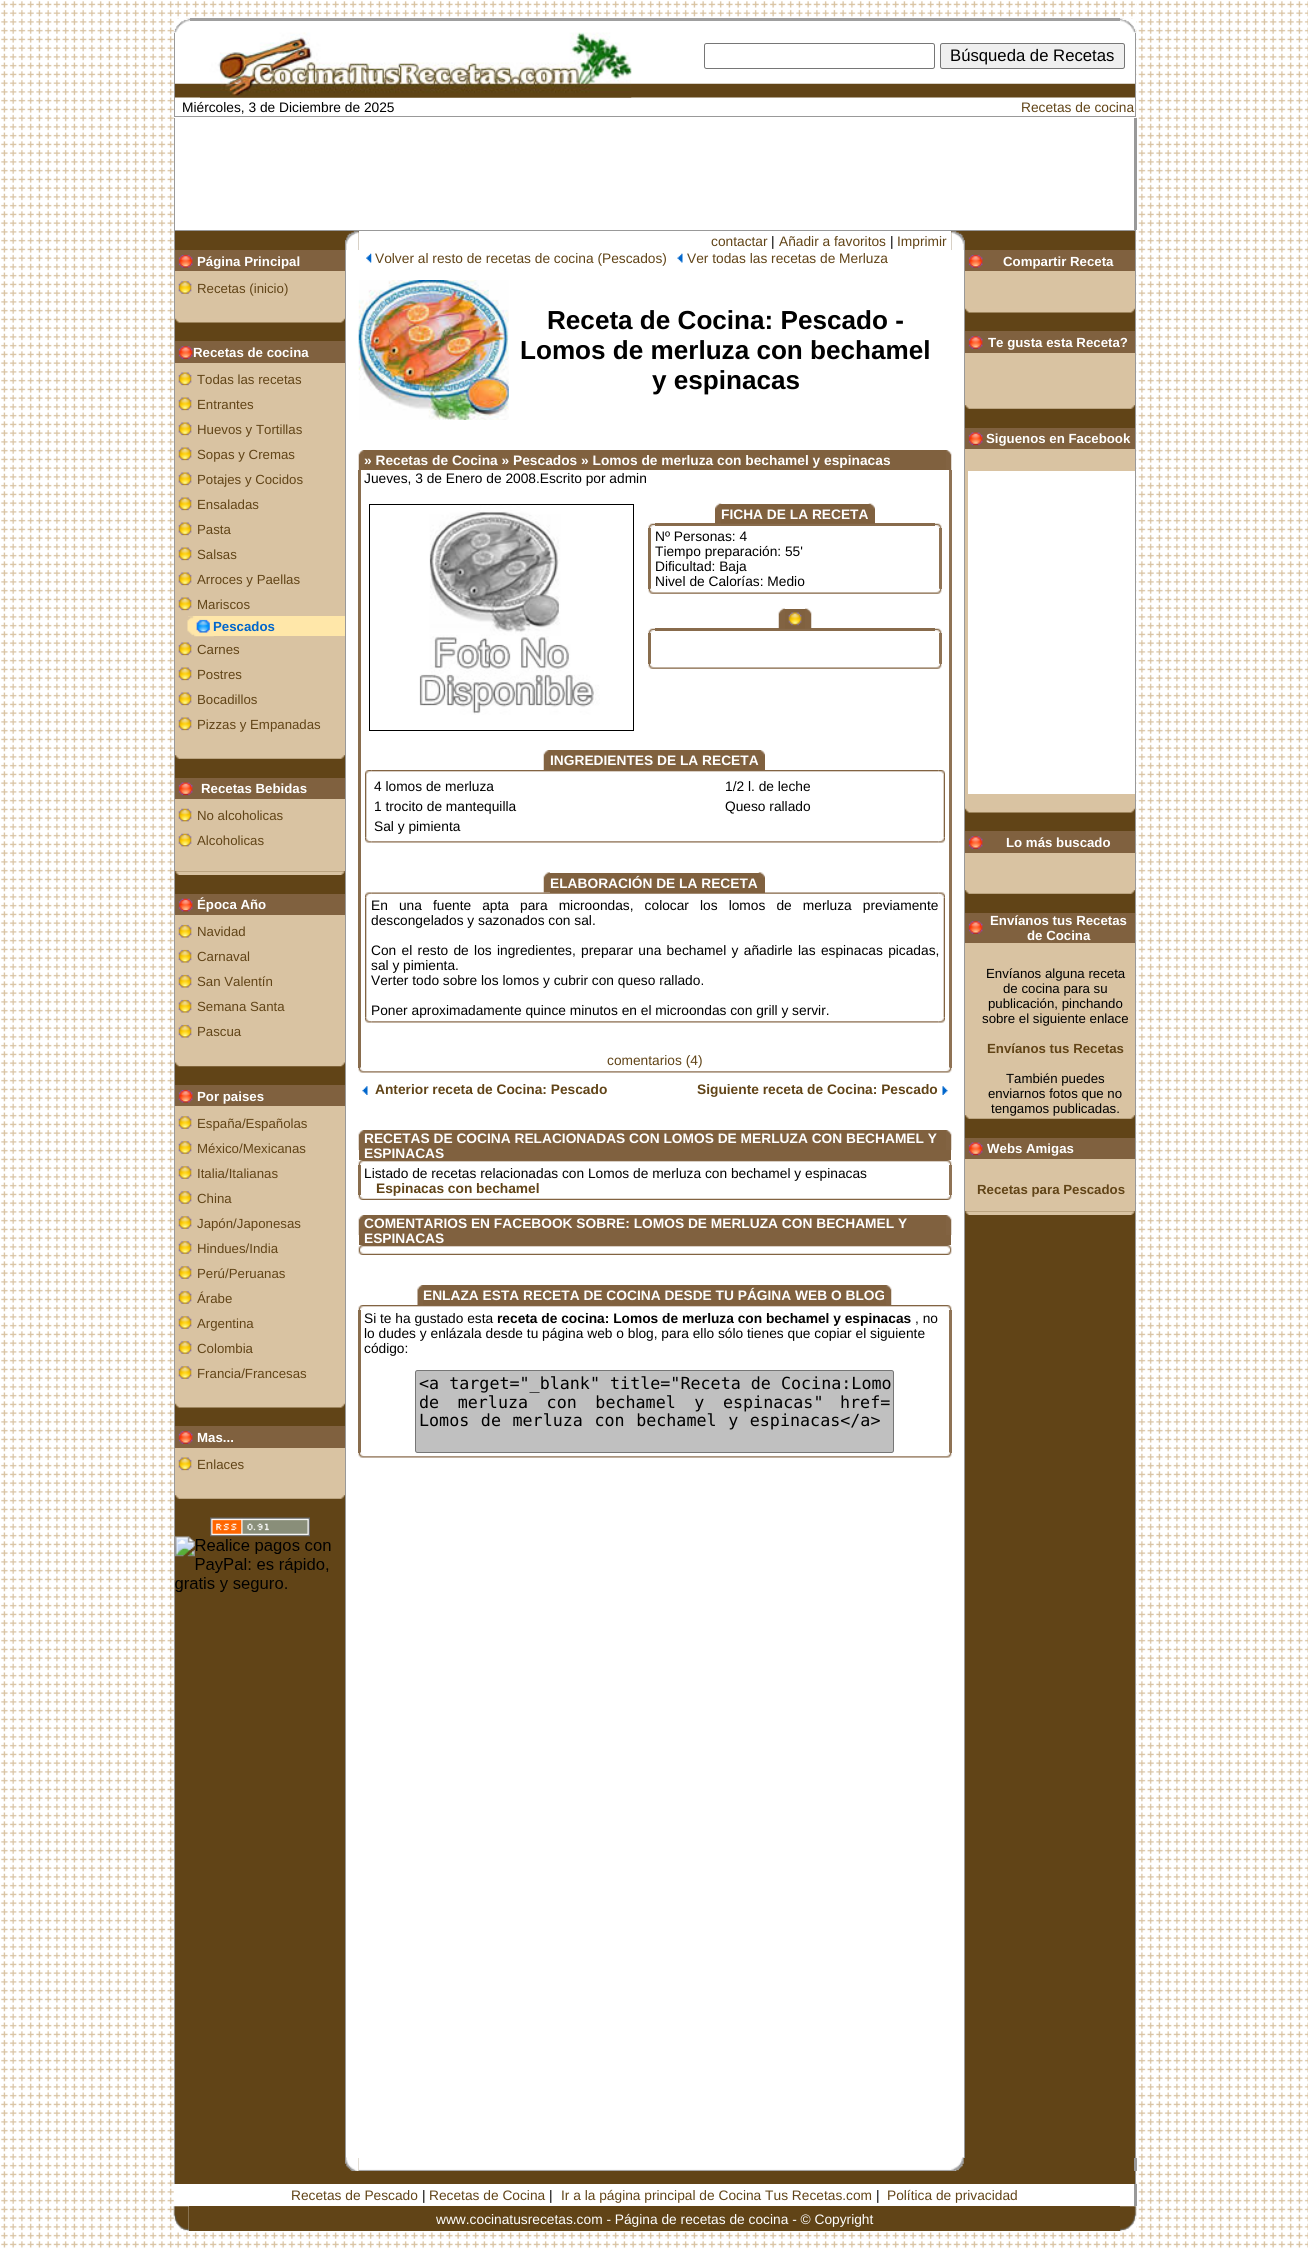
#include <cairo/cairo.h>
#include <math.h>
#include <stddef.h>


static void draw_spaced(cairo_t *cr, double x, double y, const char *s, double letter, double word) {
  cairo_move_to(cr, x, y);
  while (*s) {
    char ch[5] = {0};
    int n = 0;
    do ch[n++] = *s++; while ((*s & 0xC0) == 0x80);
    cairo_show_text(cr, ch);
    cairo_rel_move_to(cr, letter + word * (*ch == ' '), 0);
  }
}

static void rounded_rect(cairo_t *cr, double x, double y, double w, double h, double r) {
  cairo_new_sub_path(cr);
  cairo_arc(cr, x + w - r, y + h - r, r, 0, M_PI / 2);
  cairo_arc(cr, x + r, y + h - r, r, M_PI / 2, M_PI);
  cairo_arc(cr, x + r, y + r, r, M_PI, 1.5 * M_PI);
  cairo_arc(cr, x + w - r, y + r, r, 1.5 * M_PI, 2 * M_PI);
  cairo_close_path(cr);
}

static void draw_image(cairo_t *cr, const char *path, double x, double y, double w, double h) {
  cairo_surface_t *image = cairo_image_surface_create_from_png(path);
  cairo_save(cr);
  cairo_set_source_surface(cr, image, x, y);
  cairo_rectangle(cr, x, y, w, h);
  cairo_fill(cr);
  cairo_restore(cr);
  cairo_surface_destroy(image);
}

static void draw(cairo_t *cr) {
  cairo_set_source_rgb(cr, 1, 1, 1);
  cairo_paint(cr);
  draw_image(cr, "images/1.png", 1, 1, 1307, 2247);
  cairo_set_source_rgb(cr, 1, 1, 1);
  cairo_rectangle(cr, 176, 1, 960, 2247);
  cairo_fill(cr);
  draw_image(cr, "images/2.png", 173, 1, 964, 18);
  draw_image(cr, "images/3.png", 173, 18, 17, 15);
  cairo_set_source_rgb(cr, 159 / 255.0, 159 / 255.0, 159 / 255.0);
  cairo_rectangle(cr, 190, 18, 930, 3);
  cairo_fill(cr);
  draw_image(cr, "images/4.png", 1120, 18, 17, 15);
  cairo_set_source_rgb(cr, 153 / 255.0, 153 / 255.0, 153 / 255.0);
  cairo_rectangle(cr, 174, 33, 1, 83);
  cairo_fill(cr);
  draw_image(cr, "images/5.png", 175, 32, 960, 66);
  draw_image(cr, "images/6.png", 200, 32, 432, 66);
  rounded_rect(cr, 704.5, 43.5, 230, 25, 2);
  cairo_set_source_rgb(cr, 118 / 255.0, 118 / 255.0, 118 / 255.0);
  cairo_set_line_width(cr, 1);
  cairo_stroke(cr);
  cairo_set_source_rgb(cr, 239 / 255.0, 239 / 255.0, 239 / 255.0);
  rounded_rect(cr, 940.5, 43.5, 184, 25, 2);
  cairo_fill_preserve(cr);
  cairo_set_source_rgb(cr, 118 / 255.0, 118 / 255.0, 118 / 255.0);
  cairo_stroke(cr);
  cairo_set_source_rgb(cr, 153 / 255.0, 153 / 255.0, 153 / 255.0);
  cairo_rectangle(cr, 1135, 33, 1, 83);
  cairo_fill(cr);
  cairo_rectangle(cr, 174, 116, 962, 1);
  cairo_fill(cr);
  cairo_rectangle(cr, 174, 118, 1, 112);
  cairo_fill(cr);
  cairo_rectangle(cr, 1134, 118, 3, 112);
  cairo_fill(cr);
  cairo_rectangle(cr, 174, 230, 962, 1);
  cairo_fill(cr);
  cairo_rectangle(cr, 174, 231, 1, 1953);
  cairo_fill(cr);
  cairo_set_source_rgb(cr, 97 / 255.0, 68 / 255.0, 23 / 255.0);
  cairo_rectangle(cr, 175, 231, 184, 19);
  cairo_fill(cr);
  draw_image(cr, "images/7.png", 345, 231, 14, 19);
  cairo_rectangle(cr, 951, 231, 184, 19);
  cairo_fill(cr);
  draw_image(cr, "images/8.png", 951, 231, 14, 19);
  cairo_set_source_rgb(cr, 153 / 255.0, 153 / 255.0, 153 / 255.0);
  cairo_rectangle(cr, 1135, 231, 1, 1927);
  cairo_fill(cr);
  cairo_set_source_rgb(cr, 97 / 255.0, 68 / 255.0, 23 / 255.0);
  cairo_rectangle(cr, 175, 322, 170, 1849);
  cairo_fill(cr);
  cairo_set_source_rgb(cr, 128 / 255.0, 97 / 255.0, 63 / 255.0);
  cairo_rectangle(cr, 175, 250, 170, 21);
  cairo_fill(cr);
  draw_image(cr, "images/9.png", 178, 254, 15, 14);
  cairo_set_source_rgb(cr, 217 / 255.0, 195 / 255.0, 162 / 255.0);
  cairo_rectangle(cr, 175, 271, 170, 48);
  cairo_fill(cr);
  draw_image(cr, "images/10.png", 178, 281, 14, 13);
  draw_image(cr, "images/11.png", 175, 318, 170, 5);
  cairo_set_source_rgb(cr, 128 / 255.0, 97 / 255.0, 63 / 255.0);
  cairo_rectangle(cr, 175, 341, 170, 22);
  cairo_fill(cr);
  draw_image(cr, "images/12.png", 178, 346, 15, 13);
  cairo_set_source_rgb(cr, 217 / 255.0, 195 / 255.0, 162 / 255.0);
  cairo_rectangle(cr, 175, 363, 170, 392);
  cairo_fill(cr);
  draw_image(cr, "images/13.png", 178, 372, 14, 14);
  draw_image(cr, "images/13.png", 178, 397, 14, 14);
  draw_image(cr, "images/13.png", 178, 422, 14, 14);
  draw_image(cr, "images/13.png", 178, 447, 14, 14);
  draw_image(cr, "images/13.png", 178, 472, 14, 14);
  draw_image(cr, "images/13.png", 178, 497, 14, 14);
  draw_image(cr, "images/13.png", 178, 522, 14, 14);
  draw_image(cr, "images/13.png", 178, 547, 14, 14);
  draw_image(cr, "images/13.png", 178, 572, 14, 14);
  draw_image(cr, "images/13.png", 178, 597, 14, 14);
  cairo_set_source_rgb(cr, 1, 231 / 255.0, 169 / 255.0);
  cairo_rectangle(cr, 188, 616, 157, 20);
  cairo_fill(cr);
  draw_image(cr, "images/14.png", 187, 616, 27, 21);
  draw_image(cr, "images/13.png", 178, 642, 14, 14);
  draw_image(cr, "images/13.png", 178, 667, 14, 14);
  draw_image(cr, "images/13.png", 178, 692, 14, 14);
  draw_image(cr, "images/13.png", 178, 717, 14, 14);
  draw_image(cr, "images/15.png", 175, 755, 170, 4);
  cairo_set_source_rgb(cr, 128 / 255.0, 97 / 255.0, 63 / 255.0);
  cairo_rectangle(cr, 175, 778, 170, 21);
  cairo_fill(cr);
  draw_image(cr, "images/16.png", 178, 782, 15, 14);
  cairo_set_source_rgb(cr, 217 / 255.0, 195 / 255.0, 162 / 255.0);
  cairo_rectangle(cr, 175, 799, 170, 72);
  cairo_fill(cr);
  draw_image(cr, "images/17.png", 178, 808, 14, 14);
  draw_image(cr, "images/17.png", 178, 833, 14, 14);
  draw_image(cr, "images/18.png", 175, 871, 170, 4);
  cairo_set_source_rgb(cr, 128 / 255.0, 97 / 255.0, 63 / 255.0);
  cairo_rectangle(cr, 175, 894, 170, 21);
  cairo_fill(cr);
  draw_image(cr, "images/19.png", 178, 898, 15, 14);
  cairo_set_source_rgb(cr, 217 / 255.0, 195 / 255.0, 162 / 255.0);
  cairo_rectangle(cr, 175, 915, 170, 148);
  cairo_fill(cr);
  draw_image(cr, "images/20.png", 178, 924, 14, 14);
  draw_image(cr, "images/20.png", 178, 949, 14, 14);
  draw_image(cr, "images/20.png", 178, 974, 14, 14);
  draw_image(cr, "images/20.png", 178, 999, 14, 14);
  draw_image(cr, "images/21.png", 178, 1024, 14, 14);
  draw_image(cr, "images/22.png", 175, 1062, 170, 5);
  cairo_set_source_rgb(cr, 128 / 255.0, 97 / 255.0, 63 / 255.0);
  cairo_rectangle(cr, 175, 1085, 170, 21);
  cairo_fill(cr);
  draw_image(cr, "images/9.png", 178, 1089, 15, 14);
  cairo_set_source_rgb(cr, 217 / 255.0, 195 / 255.0, 162 / 255.0);
  cairo_rectangle(cr, 175, 1106, 170, 298);
  cairo_fill(cr);
  draw_image(cr, "images/10.png", 178, 1116, 14, 13);
  draw_image(cr, "images/10.png", 178, 1141, 14, 13);
  draw_image(cr, "images/23.png", 178, 1166, 14, 13);
  draw_image(cr, "images/10.png", 178, 1191, 14, 13);
  draw_image(cr, "images/10.png", 178, 1216, 14, 13);
  draw_image(cr, "images/10.png", 178, 1241, 14, 13);
  draw_image(cr, "images/10.png", 178, 1266, 14, 13);
  draw_image(cr, "images/10.png", 178, 1291, 14, 13);
  draw_image(cr, "images/10.png", 178, 1316, 14, 13);
  draw_image(cr, "images/10.png", 178, 1341, 14, 13);
  draw_image(cr, "images/10.png", 178, 1366, 14, 13);
  draw_image(cr, "images/11.png", 175, 1403, 170, 5);
  cairo_set_source_rgb(cr, 128 / 255.0, 97 / 255.0, 63 / 255.0);
  cairo_rectangle(cr, 175, 1426, 170, 22);
  cairo_fill(cr);
  draw_image(cr, "images/12.png", 178, 1431, 15, 13);
  cairo_set_source_rgb(cr, 217 / 255.0, 195 / 255.0, 162 / 255.0);
  cairo_rectangle(cr, 175, 1448, 170, 47);
  cairo_fill(cr);
  draw_image(cr, "images/13.png", 178, 1457, 14, 14);
  draw_image(cr, "images/15.png", 175, 1495, 170, 4);
  draw_image(cr, "images/24.png", 210, 1517, 100, 20);
  draw_image(cr, "images/25.png", 175, 1536, 156, 56);
  cairo_set_source_rgb(cr, 153 / 255.0, 153 / 255.0, 153 / 255.0);
  cairo_rectangle(cr, 345, 250, 1, 1908);
  cairo_fill(cr);
  draw_image(cr, "images/26.png", 366, 253, 6, 10);
  draw_image(cr, "images/27.png", 677, 253, 6, 10);
  draw_image(cr, "images/28.png", 358, 280, 151, 140);
  cairo_set_source_rgb(cr, 128 / 255.0, 97 / 255.0, 63 / 255.0);
  cairo_rectangle(cr, 364, 450, 582, 20);
  cairo_fill(cr);
  draw_image(cr, "images/29.png", 358, 450, 6, 20);
  draw_image(cr, "images/30.png", 946, 450, 6, 20);
  cairo_set_source_rgb(cr, 137 / 255.0, 109 / 255.0, 78 / 255.0);
  cairo_rectangle(cr, 358, 470, 3, 598);
  cairo_fill(cr);
  cairo_rectangle(cr, 369.5, 504.5, 264, 226);
  cairo_set_source_rgb(cr, 0, 0, 0);
  cairo_stroke(cr);
  draw_image(cr, "images/31.png", 419, 505, 181, 210);
  draw_image(cr, "images/32.png", 715, 503, 7, 21);
  cairo_set_source_rgb(cr, 128 / 255.0, 97 / 255.0, 63 / 255.0);
  cairo_rectangle(cr, 721, 504, 154, 20);
  cairo_fill(cr);
  draw_image(cr, "images/33.png", 868, 503, 7, 6);
  draw_image(cr, "images/34.png", 648, 523, 7, 6);
  cairo_set_source_rgba(cr, 129 / 255.0, 98 / 255.0, 65 / 255.0, 0.94);
  cairo_rectangle(cr, 655, 523, 280, 3);
  cairo_fill(cr);
  draw_image(cr, "images/35.png", 935, 523, 7, 6);
  cairo_set_source_rgb(cr, 137 / 255.0, 109 / 255.0, 78 / 255.0);
  cairo_rectangle(cr, 648, 528, 3, 61);
  cairo_fill(cr);
  cairo_set_source_rgb(cr, 143 / 255.0, 115 / 255.0, 85 / 255.0);
  cairo_rectangle(cr, 939, 528, 3, 61);
  cairo_fill(cr);
  draw_image(cr, "images/36.png", 648, 588, 7, 6);
  draw_image(cr, "images/37.png", 655, 592, 280, 2);
  draw_image(cr, "images/38.png", 935, 588, 7, 6);
  draw_image(cr, "images/39.png", 778, 608, 7, 21);
  cairo_set_source_rgb(cr, 128 / 255.0, 97 / 255.0, 63 / 255.0);
  cairo_rectangle(cr, 785, 609, 20, 20);
  cairo_fill(cr);
  draw_image(cr, "images/40.png", 788, 612, 14, 14);
  draw_image(cr, "images/41.png", 805, 608, 7, 21);
  draw_image(cr, "images/34.png", 648, 628, 7, 6);
  cairo_set_source_rgba(cr, 129 / 255.0, 98 / 255.0, 65 / 255.0, 0.94);
  cairo_rectangle(cr, 655, 628, 280, 3);
  cairo_fill(cr);
  draw_image(cr, "images/35.png", 935, 628, 7, 6);
  cairo_set_source_rgb(cr, 137 / 255.0, 109 / 255.0, 78 / 255.0);
  cairo_rectangle(cr, 648, 633, 3, 31);
  cairo_fill(cr);
  cairo_set_source_rgb(cr, 143 / 255.0, 115 / 255.0, 85 / 255.0);
  cairo_rectangle(cr, 939, 633, 3, 31);
  cairo_fill(cr);
  draw_image(cr, "images/36.png", 648, 663, 7, 6);
  draw_image(cr, "images/37.png", 655, 667, 280, 2);
  draw_image(cr, "images/38.png", 935, 663, 7, 6);
  cairo_set_source_rgb(cr, 128 / 255.0, 97 / 255.0, 63 / 255.0);
  cairo_rectangle(cr, 549, 750, 216, 20);
  cairo_fill(cr);
  draw_image(cr, "images/42.png", 543, 750, 6, 20);
  draw_image(cr, "images/43.png", 760, 750, 5, 6);
  draw_image(cr, "images/44.png", 365, 770, 7, 5);
  draw_image(cr, "images/45.png", 371, 770, 568, 2);
  draw_image(cr, "images/46.png", 938, 770, 7, 5);
  draw_image(cr, "images/47.png", 365, 775, 2, 63);
  draw_image(cr, "images/48.png", 943, 775, 2, 63);
  draw_image(cr, "images/49.png", 365, 837, 7, 6);
  draw_image(cr, "images/50.png", 371, 841, 568, 2);
  draw_image(cr, "images/51.png", 938, 837, 7, 6);
  draw_image(cr, "images/52.png", 543, 872, 7, 21);
  cairo_rectangle(cr, 550, 873, 215, 20);
  cairo_fill(cr);
  draw_image(cr, "images/53.png", 758, 872, 7, 6);
  draw_image(cr, "images/54.png", 365, 892, 7, 6);
  draw_image(cr, "images/55.png", 371, 892, 568, 2);
  draw_image(cr, "images/56.png", 938, 892, 7, 6);
  draw_image(cr, "images/57.png", 365, 897, 2, 121);
  draw_image(cr, "images/58.png", 943, 897, 2, 121);
  draw_image(cr, "images/49.png", 365, 1017, 7, 6);
  draw_image(cr, "images/50.png", 371, 1021, 568, 2);
  draw_image(cr, "images/51.png", 938, 1017, 7, 6);
  cairo_set_source_rgb(cr, 143 / 255.0, 115 / 255.0, 85 / 255.0);
  cairo_rectangle(cr, 949, 470, 3, 598);
  cairo_fill(cr);
  draw_image(cr, "images/59.png", 358, 1067, 7, 6);
  draw_image(cr, "images/60.png", 365, 1071, 580, 2);
  draw_image(cr, "images/61.png", 945, 1067, 7, 6);
  draw_image(cr, "images/62.png", 362, 1086, 6, 9);
  draw_image(cr, "images/63.png", 942, 1086, 6, 9);
  cairo_set_source_rgb(cr, 128 / 255.0, 97 / 255.0, 63 / 255.0);
  cairo_rectangle(cr, 359, 1130, 592, 30);
  cairo_fill(cr);
  draw_image(cr, "images/29.png", 358, 1130, 6, 20);
  draw_image(cr, "images/30.png", 946, 1130, 6, 20);
  draw_image(cr, "images/64.png", 358, 1160, 7, 5);
  draw_image(cr, "images/65.png", 365, 1160, 580, 2);
  draw_image(cr, "images/66.png", 945, 1160, 7, 5);
  cairo_set_source_rgb(cr, 137 / 255.0, 109 / 255.0, 78 / 255.0);
  cairo_rectangle(cr, 358, 1165, 3, 30);
  cairo_fill(cr);
  cairo_set_source_rgb(cr, 143 / 255.0, 115 / 255.0, 85 / 255.0);
  cairo_rectangle(cr, 949, 1165, 3, 30);
  cairo_fill(cr);
  draw_image(cr, "images/67.png", 358, 1195, 7, 5);
  draw_image(cr, "images/68.png", 365, 1198, 580, 2);
  draw_image(cr, "images/69.png", 945, 1195, 7, 5);
  cairo_set_source_rgb(cr, 128 / 255.0, 97 / 255.0, 63 / 255.0);
  cairo_rectangle(cr, 359, 1215, 592, 30);
  cairo_fill(cr);
  draw_image(cr, "images/29.png", 358, 1215, 6, 20);
  draw_image(cr, "images/30.png", 946, 1215, 6, 20);
  draw_image(cr, "images/64.png", 358, 1245, 7, 5);
  draw_image(cr, "images/65.png", 365, 1245, 580, 2);
  draw_image(cr, "images/66.png", 945, 1245, 7, 5);
  draw_image(cr, "images/67.png", 358, 1250, 7, 5);
  draw_image(cr, "images/68.png", 365, 1253, 580, 2);
  draw_image(cr, "images/69.png", 945, 1250, 7, 5);
  cairo_rectangle(cr, 423, 1285, 463, 20);
  cairo_fill(cr);
  draw_image(cr, "images/70.png", 417, 1285, 6, 20);
  draw_image(cr, "images/71.png", 886, 1285, 6, 20);
  draw_image(cr, "images/64.png", 358, 1305, 7, 5);
  draw_image(cr, "images/65.png", 365, 1305, 580, 2);
  draw_image(cr, "images/66.png", 945, 1305, 7, 5);
  cairo_set_source_rgb(cr, 137 / 255.0, 109 / 255.0, 78 / 255.0);
  cairo_rectangle(cr, 358, 1310, 3, 143);
  cairo_fill(cr);
  cairo_set_source_rgb(cr, 192 / 255.0, 192 / 255.0, 192 / 255.0);
  rounded_rect(cr, 415.5, 1370.5, 478, 82, 2);
  cairo_fill_preserve(cr);
  cairo_set_source_rgb(cr, 118 / 255.0, 118 / 255.0, 118 / 255.0);
  cairo_stroke(cr);
  cairo_set_source_rgb(cr, 143 / 255.0, 115 / 255.0, 85 / 255.0);
  cairo_rectangle(cr, 949, 1310, 3, 143);
  cairo_fill(cr);
  draw_image(cr, "images/59.png", 358, 1452, 7, 6);
  draw_image(cr, "images/60.png", 365, 1456, 580, 2);
  draw_image(cr, "images/61.png", 945, 1452, 7, 6);
  cairo_set_source_rgb(cr, 153 / 255.0, 153 / 255.0, 153 / 255.0);
  cairo_rectangle(cr, 964, 250, 1, 1908);
  cairo_fill(cr);
  cairo_set_source_rgb(cr, 97 / 255.0, 68 / 255.0, 23 / 255.0);
  cairo_rectangle(cr, 965, 312, 170, 1846);
  cairo_fill(cr);
  cairo_set_source_rgb(cr, 128 / 255.0, 97 / 255.0, 63 / 255.0);
  cairo_rectangle(cr, 965, 250, 170, 21);
  cairo_fill(cr);
  draw_image(cr, "images/9.png", 968, 254, 15, 14);
  cairo_set_source_rgb(cr, 217 / 255.0, 195 / 255.0, 162 / 255.0);
  cairo_rectangle(cr, 965, 271, 170, 38);
  cairo_fill(cr);
  draw_image(cr, "images/72.png", 965, 308, 170, 5);
  cairo_set_source_rgb(cr, 128 / 255.0, 97 / 255.0, 63 / 255.0);
  cairo_rectangle(cr, 965, 331, 170, 22);
  cairo_fill(cr);
  draw_image(cr, "images/12.png", 968, 336, 15, 13);
  cairo_set_source_rgb(cr, 217 / 255.0, 195 / 255.0, 162 / 255.0);
  cairo_rectangle(cr, 965, 353, 170, 52);
  cairo_fill(cr);
  draw_image(cr, "images/73.png", 965, 405, 170, 4);
  cairo_set_source_rgb(cr, 128 / 255.0, 97 / 255.0, 63 / 255.0);
  cairo_rectangle(cr, 965, 428, 170, 21);
  cairo_fill(cr);
  draw_image(cr, "images/74.png", 968, 432, 15, 14);
  cairo_set_source_rgb(cr, 217 / 255.0, 195 / 255.0, 162 / 255.0);
  cairo_rectangle(cr, 965, 449, 170, 360);
  cairo_fill(cr);
  cairo_set_source_rgb(cr, 1, 1, 1);
  cairo_rectangle(cr, 968, 471, 167, 323);
  cairo_fill(cr);
  draw_image(cr, "images/72.png", 965, 808, 170, 5);
  cairo_set_source_rgb(cr, 128 / 255.0, 97 / 255.0, 63 / 255.0);
  cairo_rectangle(cr, 965, 831, 170, 22);
  cairo_fill(cr);
  draw_image(cr, "images/12.png", 968, 836, 15, 13);
  cairo_set_source_rgb(cr, 217 / 255.0, 195 / 255.0, 162 / 255.0);
  cairo_rectangle(cr, 965, 853, 170, 37);
  cairo_fill(cr);
  draw_image(cr, "images/73.png", 965, 890, 170, 4);
  cairo_set_source_rgb(cr, 128 / 255.0, 97 / 255.0, 63 / 255.0);
  cairo_rectangle(cr, 965, 913, 170, 30);
  cairo_fill(cr);
  draw_image(cr, "images/12.png", 968, 921, 15, 13);
  cairo_set_source_rgb(cr, 217 / 255.0, 195 / 255.0, 162 / 255.0);
  cairo_rectangle(cr, 965, 943, 170, 172);
  cairo_fill(cr);
  draw_image(cr, "images/73.png", 965, 1115, 170, 4);
  cairo_set_source_rgb(cr, 128 / 255.0, 97 / 255.0, 63 / 255.0);
  cairo_rectangle(cr, 965, 1138, 170, 21);
  cairo_fill(cr);
  draw_image(cr, "images/74.png", 968, 1142, 15, 14);
  cairo_set_source_rgb(cr, 217 / 255.0, 195 / 255.0, 162 / 255.0);
  cairo_rectangle(cr, 965, 1159, 170, 52);
  cairo_fill(cr);
  draw_image(cr, "images/75.png", 965, 1211, 170, 4);
  cairo_set_source_rgb(cr, 97 / 255.0, 68 / 255.0, 23 / 255.0);
  cairo_rectangle(cr, 345, 2158, 14, 13);
  cairo_fill(cr);
  draw_image(cr, "images/76.png", 345, 2157, 14, 14);
  draw_image(cr, "images/77.png", 358, 2158, 592, 13);
  cairo_rectangle(cr, 956, 2158, 178, 13);
  cairo_fill(cr);
  draw_image(cr, "images/78.png", 950, 2157, 14, 14);
  cairo_set_source_rgb(cr, 153 / 255.0, 153 / 255.0, 153 / 255.0);
  cairo_rectangle(cr, 1134, 2158, 3, 13);
  cairo_fill(cr);
  cairo_set_source_rgb(cr, 97 / 255.0, 68 / 255.0, 23 / 255.0);
  cairo_rectangle(cr, 175, 2171, 960, 13);
  cairo_fill(cr);
  cairo_set_source_rgb(cr, 153 / 255.0, 153 / 255.0, 153 / 255.0);
  cairo_rectangle(cr, 1135, 2171, 1, 13);
  cairo_fill(cr);
  cairo_rectangle(cr, 1134, 2184, 3, 22);
  cairo_fill(cr);
  draw_image(cr, "images/79.png", 173, 2206, 16, 26);
  cairo_set_source_rgb(cr, 97 / 255.0, 68 / 255.0, 23 / 255.0);
  cairo_rectangle(cr, 189, 2206, 931, 25);
  cairo_fill(cr);
  draw_image(cr, "images/80.png", 1120, 2206, 17, 26);
  draw_image(cr, "images/81.png", 173, 2231, 964, 17);
  cairo_select_font_face(cr, "Liberation Sans", CAIRO_FONT_SLANT_NORMAL, CAIRO_FONT_WEIGHT_NORMAL);
  cairo_set_font_size(cr, 16.7);
  cairo_set_source_rgb(cr, 0, 0, 0);
  cairo_move_to(cr, 950, 61);
  cairo_show_text(cr, "Búsqueda de Recetas");
  cairo_set_font_size(cr, 13.75);
  cairo_move_to(cr, 182, 112);
  cairo_show_text(cr, "Miércoles, 3 de Diciembre de 2025");
  cairo_set_source_rgb(cr, 97 / 255.0, 68 / 255.0, 23 / 255.0);
  cairo_move_to(cr, 1021, 112);
  cairo_show_text(cr, "Recetas de cocina");
  cairo_move_to(cr, 711, 246);
  cairo_show_text(cr, "contactar");
  cairo_set_source_rgb(cr, 0, 0, 0);
  cairo_move_to(cr, 771, 246);
  cairo_show_text(cr, "|");
  cairo_set_source_rgb(cr, 97 / 255.0, 68 / 255.0, 23 / 255.0);
  cairo_move_to(cr, 779, 246);
  cairo_show_text(cr, "Añadir a favoritos");
  cairo_set_source_rgb(cr, 0, 0, 0);
  cairo_move_to(cr, 890, 246);
  cairo_show_text(cr, "|");
  cairo_set_source_rgb(cr, 97 / 255.0, 68 / 255.0, 23 / 255.0);
  cairo_move_to(cr, 897, 246);
  cairo_show_text(cr, "Imprimir");
  cairo_select_font_face(cr, "Liberation Sans", CAIRO_FONT_SLANT_NORMAL, CAIRO_FONT_WEIGHT_BOLD);
  cairo_set_font_size(cr, 13.25);
  cairo_set_source_rgb(cr, 1, 1, 1);
  cairo_move_to(cr, 197, 266);
  cairo_show_text(cr, "Página Principal");
  cairo_select_font_face(cr, "Liberation Sans", CAIRO_FONT_SLANT_NORMAL, CAIRO_FONT_WEIGHT_NORMAL);
  cairo_set_source_rgb(cr, 97 / 255.0, 68 / 255.0, 23 / 255.0);
  cairo_move_to(cr, 197, 293);
  cairo_show_text(cr, "Recetas (inicio)");
  cairo_select_font_face(cr, "Liberation Sans", CAIRO_FONT_SLANT_NORMAL, CAIRO_FONT_WEIGHT_BOLD);
  cairo_set_source_rgb(cr, 1, 1, 1);
  cairo_move_to(cr, 193, 357);
  cairo_show_text(cr, "Recetas de cocina");
  cairo_select_font_face(cr, "Liberation Sans", CAIRO_FONT_SLANT_NORMAL, CAIRO_FONT_WEIGHT_NORMAL);
  cairo_set_source_rgb(cr, 97 / 255.0, 68 / 255.0, 23 / 255.0);
  cairo_move_to(cr, 197, 384);
  cairo_show_text(cr, "Todas las recetas");
  cairo_move_to(cr, 197, 409);
  cairo_show_text(cr, "Entrantes");
  cairo_move_to(cr, 197, 434);
  cairo_show_text(cr, "Huevos y Tortillas");
  cairo_move_to(cr, 197, 459);
  cairo_show_text(cr, "Sopas y Cremas");
  cairo_move_to(cr, 197, 484);
  cairo_show_text(cr, "Potajes y Cocidos");
  cairo_move_to(cr, 197, 509);
  cairo_show_text(cr, "Ensaladas");
  cairo_move_to(cr, 197, 534);
  cairo_show_text(cr, "Pasta");
  cairo_move_to(cr, 197, 559);
  cairo_show_text(cr, "Salsas");
  cairo_move_to(cr, 197, 584);
  cairo_show_text(cr, "Arroces y Paellas");
  cairo_move_to(cr, 197, 609);
  cairo_show_text(cr, "Mariscos");
  cairo_select_font_face(cr, "Liberation Sans", CAIRO_FONT_SLANT_NORMAL, CAIRO_FONT_WEIGHT_BOLD);
  cairo_set_source_rgb(cr, 0, 102 / 255.0, 204 / 255.0);
  cairo_move_to(cr, 213, 631);
  cairo_show_text(cr, "Pescados");
  cairo_select_font_face(cr, "Liberation Sans", CAIRO_FONT_SLANT_NORMAL, CAIRO_FONT_WEIGHT_NORMAL);
  cairo_set_source_rgb(cr, 97 / 255.0, 68 / 255.0, 23 / 255.0);
  cairo_move_to(cr, 197, 654);
  cairo_show_text(cr, "Carnes");
  cairo_move_to(cr, 197, 679);
  cairo_show_text(cr, "Postres");
  cairo_move_to(cr, 197, 704);
  cairo_show_text(cr, "Bocadillos");
  cairo_move_to(cr, 197, 729);
  cairo_show_text(cr, "Pizzas y Empanadas");
  cairo_select_font_face(cr, "Liberation Sans", CAIRO_FONT_SLANT_NORMAL, CAIRO_FONT_WEIGHT_BOLD);
  cairo_set_source_rgb(cr, 1, 1, 1);
  cairo_move_to(cr, 201, 793);
  cairo_show_text(cr, "Recetas Bebidas");
  cairo_select_font_face(cr, "Liberation Sans", CAIRO_FONT_SLANT_NORMAL, CAIRO_FONT_WEIGHT_NORMAL);
  cairo_set_source_rgb(cr, 97 / 255.0, 68 / 255.0, 23 / 255.0);
  cairo_move_to(cr, 197, 820);
  cairo_show_text(cr, "No alcoholicas");
  cairo_move_to(cr, 197, 845);
  cairo_show_text(cr, "Alcoholicas");
  cairo_select_font_face(cr, "Liberation Sans", CAIRO_FONT_SLANT_NORMAL, CAIRO_FONT_WEIGHT_BOLD);
  cairo_set_source_rgb(cr, 1, 1, 1);
  cairo_move_to(cr, 197, 909);
  cairo_show_text(cr, "Época Año");
  cairo_select_font_face(cr, "Liberation Sans", CAIRO_FONT_SLANT_NORMAL, CAIRO_FONT_WEIGHT_NORMAL);
  cairo_set_source_rgb(cr, 97 / 255.0, 68 / 255.0, 23 / 255.0);
  cairo_move_to(cr, 197, 936);
  cairo_show_text(cr, "Navidad");
  cairo_move_to(cr, 197, 961);
  cairo_show_text(cr, "Carnaval");
  cairo_move_to(cr, 197, 986);
  cairo_show_text(cr, "San Valentín");
  cairo_move_to(cr, 197, 1011);
  cairo_show_text(cr, "Semana Santa");
  cairo_move_to(cr, 197, 1036);
  cairo_show_text(cr, "Pascua");
  cairo_select_font_face(cr, "Liberation Sans", CAIRO_FONT_SLANT_NORMAL, CAIRO_FONT_WEIGHT_BOLD);
  cairo_set_source_rgb(cr, 1, 1, 1);
  cairo_move_to(cr, 197, 1101);
  cairo_show_text(cr, "Por paises");
  cairo_select_font_face(cr, "Liberation Sans", CAIRO_FONT_SLANT_NORMAL, CAIRO_FONT_WEIGHT_NORMAL);
  cairo_set_source_rgb(cr, 97 / 255.0, 68 / 255.0, 23 / 255.0);
  cairo_move_to(cr, 197, 1128);
  cairo_show_text(cr, "España/Españolas");
  cairo_move_to(cr, 197, 1153);
  cairo_show_text(cr, "México/Mexicanas");
  cairo_move_to(cr, 197, 1178);
  cairo_show_text(cr, "Italia/Italianas");
  cairo_move_to(cr, 197, 1203);
  cairo_show_text(cr, "China");
  cairo_move_to(cr, 197, 1228);
  cairo_show_text(cr, "Japón/Japonesas");
  cairo_move_to(cr, 197, 1253);
  cairo_show_text(cr, "Hindues/India");
  cairo_move_to(cr, 197, 1278);
  cairo_show_text(cr, "Perú/Peruanas");
  cairo_move_to(cr, 197, 1303);
  cairo_show_text(cr, "Árabe");
  cairo_move_to(cr, 197, 1328);
  cairo_show_text(cr, "Argentina");
  cairo_move_to(cr, 197, 1353);
  cairo_show_text(cr, "Colombia");
  cairo_move_to(cr, 197, 1378);
  cairo_show_text(cr, "Francia/Francesas");
  cairo_select_font_face(cr, "Liberation Sans", CAIRO_FONT_SLANT_NORMAL, CAIRO_FONT_WEIGHT_BOLD);
  cairo_set_source_rgb(cr, 1, 1, 1);
  cairo_move_to(cr, 197, 1442);
  cairo_show_text(cr, "Mas...");
  cairo_select_font_face(cr, "Liberation Sans", CAIRO_FONT_SLANT_NORMAL, CAIRO_FONT_WEIGHT_NORMAL);
  cairo_set_source_rgb(cr, 97 / 255.0, 68 / 255.0, 23 / 255.0);
  cairo_move_to(cr, 197, 1469);
  cairo_show_text(cr, "Enlaces");
  cairo_set_font_size(cr, 13.75);
  cairo_move_to(cr, 375, 263);
  cairo_show_text(cr, "Volver al resto de recetas de cocina (Pescados)");
  cairo_move_to(cr, 687, 263);
  cairo_show_text(cr, "Ver todas las recetas de Merluza");
  cairo_select_font_face(cr, "Liberation Sans", CAIRO_FONT_SLANT_NORMAL, CAIRO_FONT_WEIGHT_BOLD);
  cairo_set_font_size(cr, 26.1);
  cairo_set_source_rgb(cr, 0, 0, 0);
  cairo_move_to(cr, 547, 329);
  cairo_show_text(cr, "Receta de Cocina: Pescado -");
  cairo_move_to(cr, 520, 359);
  cairo_show_text(cr, "Lomos de merluza con bechamel");
  cairo_move_to(cr, 652, 389);
  cairo_show_text(cr, "y espinacas");
  cairo_set_font_size(cr, 13.75);
  cairo_set_source_rgb(cr, 1, 1, 1);
  cairo_move_to(cr, 364, 465);
  cairo_show_text(cr, "» Recetas de Cocina » Pescados » Lomos de merluza con bechamel y espinacas");
  cairo_select_font_face(cr, "Liberation Sans", CAIRO_FONT_SLANT_NORMAL, CAIRO_FONT_WEIGHT_NORMAL);
  cairo_set_source_rgb(cr, 0, 0, 0);
  cairo_move_to(cr, 364, 483);
  cairo_show_text(cr, "Jueves, 3 de Enero de 2008.Escrito por admin");
  cairo_select_font_face(cr, "Liberation Sans", CAIRO_FONT_SLANT_NORMAL, CAIRO_FONT_WEIGHT_BOLD);
  cairo_set_source_rgb(cr, 1, 1, 1);
  cairo_move_to(cr, 721, 519);
  cairo_show_text(cr, "FICHA DE LA RECETA");
  cairo_select_font_face(cr, "Liberation Sans", CAIRO_FONT_SLANT_NORMAL, CAIRO_FONT_WEIGHT_NORMAL);
  cairo_set_source_rgb(cr, 0, 0, 0);
  cairo_move_to(cr, 655, 541);
  cairo_show_text(cr, "Nº Personas: 4");
  cairo_move_to(cr, 655, 556);
  cairo_show_text(cr, "Tiempo preparación: 55'");
  cairo_move_to(cr, 655, 571);
  cairo_show_text(cr, "Dificultad: Baja");
  cairo_move_to(cr, 655, 586);
  cairo_show_text(cr, "Nivel de Calorías: Medio");
  cairo_select_font_face(cr, "Liberation Sans", CAIRO_FONT_SLANT_NORMAL, CAIRO_FONT_WEIGHT_BOLD);
  cairo_set_source_rgb(cr, 1, 1, 1);
  cairo_move_to(cr, 550, 765);
  cairo_show_text(cr, "INGREDIENTES DE LA RECETA");
  cairo_select_font_face(cr, "Liberation Sans", CAIRO_FONT_SLANT_NORMAL, CAIRO_FONT_WEIGHT_NORMAL);
  cairo_set_source_rgb(cr, 0, 0, 0);
  cairo_move_to(cr, 374, 791);
  cairo_show_text(cr, "4 lomos de merluza");
  cairo_move_to(cr, 725, 791);
  cairo_show_text(cr, "1/2 l. de leche");
  cairo_move_to(cr, 374, 811);
  cairo_show_text(cr, "1 trocito de mantequilla");
  cairo_move_to(cr, 725, 811);
  cairo_show_text(cr, "Queso rallado");
  cairo_move_to(cr, 374, 831);
  cairo_show_text(cr, "Sal y pimienta");
  cairo_select_font_face(cr, "Liberation Sans", CAIRO_FONT_SLANT_NORMAL, CAIRO_FONT_WEIGHT_BOLD);
  cairo_set_source_rgb(cr, 1, 1, 1);
  cairo_move_to(cr, 550, 888);
  cairo_show_text(cr, "ELABORACIÓN DE LA RECETA");
  cairo_select_font_face(cr, "Liberation Sans", CAIRO_FONT_SLANT_NORMAL, CAIRO_FONT_WEIGHT_NORMAL);
  cairo_set_source_rgb(cr, 0, 0, 0);
  draw_spaced(cr, 371, 910, "En una fuente apta para microondas, colocar los lomos de merluza previamente", 0, 7.25);
  cairo_move_to(cr, 371, 925);
  cairo_show_text(cr, "descongelados y sazonados con sal.");
  draw_spaced(cr, 371, 955, "Con el resto de los ingredientes, preparar una bechamel y añadirle las espinacas picadas,", 0, 1.5);
  cairo_move_to(cr, 371, 970);
  cairo_show_text(cr, "sal y pimienta.");
  cairo_move_to(cr, 371, 985);
  cairo_show_text(cr, "Verter todo sobre los lomos y cubrir con queso rallado.");
  cairo_move_to(cr, 371, 1015);
  cairo_show_text(cr, "Poner aproximadamente quince minutos en el microondas con grill y servir.");
  cairo_set_source_rgb(cr, 97 / 255.0, 68 / 255.0, 23 / 255.0);
  cairo_move_to(cr, 607, 1065);
  cairo_show_text(cr, "comentarios (4)");
  cairo_select_font_face(cr, "Liberation Sans", CAIRO_FONT_SLANT_NORMAL, CAIRO_FONT_WEIGHT_BOLD);
  cairo_move_to(cr, 375, 1094);
  cairo_show_text(cr, "Anterior receta de Cocina: Pescado");
  cairo_move_to(cr, 697, 1094);
  cairo_show_text(cr, "Siguiente receta de Cocina: Pescado");
  cairo_set_source_rgb(cr, 1, 1, 1);
  cairo_move_to(cr, 364, 1143);
  cairo_show_text(cr, "RECETAS DE COCINA RELACIONADAS CON LOMOS DE MERLUZA CON BECHAMEL Y");
  cairo_move_to(cr, 364, 1158);
  cairo_show_text(cr, "ESPINACAS");
  cairo_select_font_face(cr, "Liberation Sans", CAIRO_FONT_SLANT_NORMAL, CAIRO_FONT_WEIGHT_NORMAL);
  cairo_set_source_rgb(cr, 0, 0, 0);
  cairo_move_to(cr, 364, 1178);
  cairo_show_text(cr, "Listado de recetas relacionadas con Lomos de merluza con bechamel y espinacas");
  cairo_select_font_face(cr, "Liberation Sans", CAIRO_FONT_SLANT_NORMAL, CAIRO_FONT_WEIGHT_BOLD);
  cairo_set_source_rgb(cr, 97 / 255.0, 68 / 255.0, 23 / 255.0);
  cairo_move_to(cr, 376, 1193);
  cairo_show_text(cr, "Espinacas con bechamel");
  cairo_set_source_rgb(cr, 1, 1, 1);
  cairo_move_to(cr, 364, 1228);
  cairo_show_text(cr, "COMENTARIOS EN FACEBOOK SOBRE: LOMOS DE MERLUZA CON BECHAMEL Y");
  cairo_move_to(cr, 364, 1243);
  cairo_show_text(cr, "ESPINACAS");
  cairo_move_to(cr, 423, 1300);
  cairo_show_text(cr, "ENLAZA ESTA RECETA DE COCINA DESDE TU PÁGINA WEB O BLOG");
  cairo_select_font_face(cr, "Liberation Sans", CAIRO_FONT_SLANT_NORMAL, CAIRO_FONT_WEIGHT_NORMAL);
  cairo_set_source_rgb(cr, 0, 0, 0);
  cairo_move_to(cr, 364, 1323);
  cairo_show_text(cr, "Si te ha gustado esta");
  cairo_select_font_face(cr, "Liberation Sans", CAIRO_FONT_SLANT_NORMAL, CAIRO_FONT_WEIGHT_BOLD);
  cairo_move_to(cr, 497, 1323);
  cairo_show_text(cr, "receta de cocina: Lomos de merluza con bechamel y espinacas");
  cairo_select_font_face(cr, "Liberation Sans", CAIRO_FONT_SLANT_NORMAL, CAIRO_FONT_WEIGHT_NORMAL);
  cairo_move_to(cr, 915, 1323);
  cairo_show_text(cr, ", no");
  cairo_move_to(cr, 364, 1338);
  cairo_show_text(cr, "lo dudes y enlázala desde tu página web o blog, para ello sólo tienes que copiar el siguiente");
  cairo_move_to(cr, 364, 1353);
  cairo_show_text(cr, "código:");
  cairo_select_font_face(cr, "DejaVu Sans Mono", CAIRO_FONT_SLANT_NORMAL, CAIRO_FONT_WEIGHT_NORMAL);
  cairo_set_font_size(cr, 16.7);
  cairo_move_to(cr, 419, 1389);
  cairo_show_text(cr, "<a target=\"_blank\" title=\"Receta de Cocina:Lomo");
  draw_spaced(cr, 419, 1408, "de merluza con bechamel y espinacas\"", 0, 8.5);
  cairo_move_to(cr, 840, 1408);
  cairo_show_text(cr, "href=");
  draw_spaced(cr, 419, 1426, "Lomos de merluza con bechamel y espinacas</a>", 0, 1.5);
  cairo_select_font_face(cr, "Liberation Sans", CAIRO_FONT_SLANT_NORMAL, CAIRO_FONT_WEIGHT_BOLD);
  cairo_set_font_size(cr, 13.25);
  cairo_set_source_rgb(cr, 1, 1, 1);
  cairo_move_to(cr, 1003, 266);
  cairo_show_text(cr, "Compartir Receta");
  cairo_move_to(cr, 988, 347);
  cairo_show_text(cr, "Te gusta esta Receta?");
  cairo_move_to(cr, 986, 443);
  cairo_show_text(cr, "Siguenos en Facebook");
  cairo_move_to(cr, 1006, 847);
  cairo_show_text(cr, "Lo más buscado");
  cairo_move_to(cr, 990, 925);
  cairo_show_text(cr, "Envíanos tus Recetas");
  cairo_move_to(cr, 1027, 940);
  cairo_show_text(cr, "de Cocina");
  cairo_select_font_face(cr, "Liberation Sans", CAIRO_FONT_SLANT_NORMAL, CAIRO_FONT_WEIGHT_NORMAL);
  cairo_set_source_rgb(cr, 0, 0, 0);
  cairo_move_to(cr, 986, 978);
  cairo_show_text(cr, "Envíanos alguna receta");
  cairo_move_to(cr, 1003, 993);
  cairo_show_text(cr, "de cocina para su");
  cairo_move_to(cr, 988, 1008);
  cairo_show_text(cr, "publicación, pinchando");
  cairo_move_to(cr, 982, 1023);
  cairo_show_text(cr, "sobre el siguiente enlace");
  cairo_select_font_face(cr, "Liberation Sans", CAIRO_FONT_SLANT_NORMAL, CAIRO_FONT_WEIGHT_BOLD);
  cairo_set_source_rgb(cr, 97 / 255.0, 68 / 255.0, 23 / 255.0);
  cairo_move_to(cr, 987, 1053);
  cairo_show_text(cr, "Envíanos tus Recetas");
  cairo_select_font_face(cr, "Liberation Sans", CAIRO_FONT_SLANT_NORMAL, CAIRO_FONT_WEIGHT_NORMAL);
  cairo_set_source_rgb(cr, 0, 0, 0);
  cairo_move_to(cr, 1006, 1083);
  cairo_show_text(cr, "También puedes");
  cairo_move_to(cr, 988, 1098);
  cairo_show_text(cr, "enviarnos fotos que no");
  cairo_move_to(cr, 991, 1113);
  cairo_show_text(cr, "tengamos publicadas.");
  cairo_select_font_face(cr, "Liberation Sans", CAIRO_FONT_SLANT_NORMAL, CAIRO_FONT_WEIGHT_BOLD);
  cairo_set_source_rgb(cr, 1, 1, 1);
  cairo_move_to(cr, 987, 1153);
  cairo_show_text(cr, "Webs Amigas");
  cairo_set_source_rgb(cr, 97 / 255.0, 68 / 255.0, 23 / 255.0);
  cairo_move_to(cr, 977, 1194);
  cairo_show_text(cr, "Recetas para Pescados");
  cairo_select_font_face(cr, "Liberation Sans", CAIRO_FONT_SLANT_NORMAL, CAIRO_FONT_WEIGHT_NORMAL);
  cairo_set_font_size(cr, 13.75);
  cairo_move_to(cr, 291, 2200);
  cairo_show_text(cr, "Recetas de Pescado");
  cairo_set_source_rgb(cr, 0, 0, 0);
  cairo_move_to(cr, 422, 2200);
  cairo_show_text(cr, "|");
  cairo_set_source_rgb(cr, 97 / 255.0, 68 / 255.0, 23 / 255.0);
  cairo_move_to(cr, 429, 2200);
  cairo_show_text(cr, "Recetas de Cocina");
  cairo_set_source_rgb(cr, 0, 0, 0);
  cairo_move_to(cr, 549, 2200);
  cairo_show_text(cr, "|");
  cairo_set_source_rgb(cr, 97 / 255.0, 68 / 255.0, 23 / 255.0);
  cairo_move_to(cr, 561, 2200);
  cairo_show_text(cr, "Ir a la página principal de Cocina Tus Recetas.com");
  cairo_set_source_rgb(cr, 0, 0, 0);
  cairo_move_to(cr, 876, 2200);
  cairo_show_text(cr, "|");
  cairo_set_source_rgb(cr, 97 / 255.0, 68 / 255.0, 23 / 255.0);
  cairo_move_to(cr, 887, 2200);
  cairo_show_text(cr, "Política de privacidad");
  cairo_set_source_rgb(cr, 1, 1, 1);
  cairo_move_to(cr, 436, 2224);
  cairo_show_text(cr, "www.cocinatusrecetas.com - Página de recetas de cocina - © Copyright");
}

int main(void) {
  cairo_surface_t *surface = cairo_image_surface_create(CAIRO_FORMAT_RGB24, 1308, 2249);
  cairo_t *cr = cairo_create(surface);
  cairo_font_options_t *options = cairo_font_options_create();
  cairo_font_options_set_hint_metrics(options, CAIRO_HINT_METRICS_OFF);
  cairo_font_options_set_hint_style(options, CAIRO_HINT_STYLE_NONE);
  cairo_set_font_options(cr, options);
  cairo_set_miter_limit(cr, 4);
  draw(cr);
  cairo_surface_write_to_png(surface, "out.png");
  cairo_font_options_destroy(options);
  cairo_destroy(cr);
  cairo_surface_destroy(surface);
  return 0;
}
